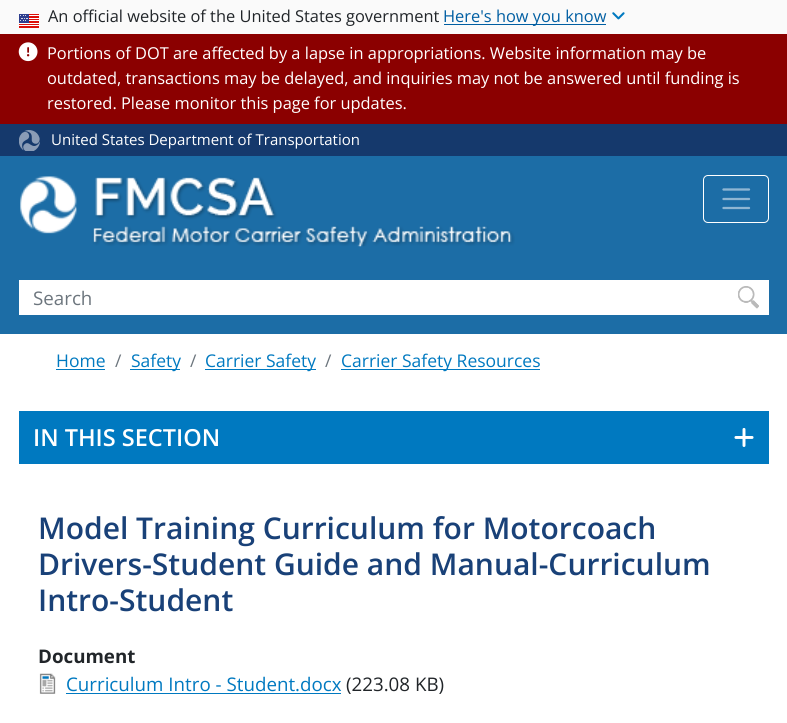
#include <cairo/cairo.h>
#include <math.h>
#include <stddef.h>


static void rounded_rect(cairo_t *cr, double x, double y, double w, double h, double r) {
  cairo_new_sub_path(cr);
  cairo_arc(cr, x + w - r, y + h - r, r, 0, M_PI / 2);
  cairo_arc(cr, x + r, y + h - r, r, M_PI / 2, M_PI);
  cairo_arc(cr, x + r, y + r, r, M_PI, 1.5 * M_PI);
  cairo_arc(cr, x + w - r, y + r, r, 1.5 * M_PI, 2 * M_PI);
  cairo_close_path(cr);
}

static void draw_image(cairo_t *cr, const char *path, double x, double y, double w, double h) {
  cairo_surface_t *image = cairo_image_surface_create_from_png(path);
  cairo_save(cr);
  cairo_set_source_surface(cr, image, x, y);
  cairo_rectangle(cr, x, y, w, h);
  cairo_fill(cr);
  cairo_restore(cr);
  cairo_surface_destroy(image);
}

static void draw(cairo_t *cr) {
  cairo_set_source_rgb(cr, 1, 1, 1);
  cairo_paint(cr);
  cairo_set_source_rgb(cr, 250 / 255.0, 250 / 255.0, 250 / 255.0);
  cairo_rectangle(cr, 0, 0, 787, 34);
  cairo_fill(cr);
  draw_image(cr, "images/1.png", 19, 14, 20, 14);
  cairo_set_source_rgb(cr, 0, 94 / 255.0, 162 / 255.0);
  cairo_rectangle(cr, 444, 24, 162, 1);
  cairo_fill(cr);
  draw_image(cr, "images/2.png", 612, 12, 13, 8);
  cairo_set_source_rgb(cr, 139 / 255.0, 0, 0);
  cairo_rectangle(cr, 0, 34, 787, 90);
  cairo_fill(cr);
  draw_image(cr, "images/3.png", 18, 42, 20, 20);
  cairo_set_source_rgb(cr, 21 / 255.0, 57 / 255.0, 108 / 255.0);
  cairo_rectangle(cr, 0, 124, 787, 32);
  cairo_fill(cr);
  draw_image(cr, "images/4.png", 19, 130, 21, 21);
  cairo_set_source_rgb(cr, 28 / 255.0, 109 / 255.0, 166 / 255.0);
  cairo_rectangle(cr, 0, 156, 787, 178);
  cairo_fill(cr);
  draw_image(cr, "images/5.png", 20, 176, 495, 71);
  rounded_rect(cr, 703.5, 175.5, 65, 47, 4.5);
  cairo_set_source_rgb(cr, 1, 1, 1);
  cairo_set_line_width(cr, 1);
  cairo_stroke(cr);
  cairo_new_path(cr);
  cairo_move_to(cr, 723.5, 189.5);
  cairo_line_to(cr, 749, 189.5);
  cairo_move_to(cr, 723.5, 199);
  cairo_line_to(cr, 749, 199);
  cairo_move_to(cr, 723.5, 208);
  cairo_line_to(cr, 749, 208);
  cairo_set_source_rgb(cr, 142 / 255.0, 182 / 255.0, 211 / 255.0);
  cairo_set_line_width(cr, 2.3);
  cairo_set_line_cap(cr, CAIRO_LINE_CAP_ROUND);
  cairo_stroke(cr);
  cairo_set_source_rgb(cr, 1, 1, 1);
  cairo_rectangle(cr, 19, 280, 750, 35);
  cairo_fill(cr);
  draw_image(cr, "images/6.png", 738, 286, 21, 23);
  cairo_set_source_rgb(cr, 0, 121 / 255.0, 192 / 255.0);
  cairo_rectangle(cr, 56, 369, 49, 1);
  cairo_fill(cr);
  cairo_rectangle(cr, 130, 369, 50, 1);
  cairo_fill(cr);
  cairo_rectangle(cr, 205, 369, 111, 1);
  cairo_fill(cr);
  cairo_rectangle(cr, 341, 369, 199, 1);
  cairo_fill(cr);
  cairo_rectangle(cr, 19, 411, 750, 53);
  cairo_fill(cr);
  draw_image(cr, "images/7.png", 734, 428, 20, 19);
  draw_image(cr, "images/8.png", 39, 673, 17, 21);
  cairo_rectangle(cr, 66, 693, 275, 1);
  cairo_fill(cr);
  cairo_select_font_face(cr, "Open Sans", CAIRO_FONT_SLANT_NORMAL, CAIRO_FONT_WEIGHT_NORMAL);
  cairo_set_font_size(cr, 16.4);
  cairo_set_source_rgb(cr, 33 / 255.0, 37 / 255.0, 41 / 255.0);
  cairo_move_to(cr, 48, 22);
  cairo_show_text(cr, "An official website of the United States government");
  cairo_set_source_rgb(cr, 0, 94 / 255.0, 162 / 255.0);
  cairo_move_to(cr, 443, 22);
  cairo_show_text(cr, "Here's how you know");
  cairo_set_source_rgb(cr, 1, 1, 1);
  cairo_move_to(cr, 47, 59);
  cairo_show_text(cr, "Portions of DOT are affected by a lapse in appropriations. Website information may be");
  cairo_move_to(cr, 47, 84);
  cairo_show_text(cr, "outdated, transactions may be delayed, and inquiries may not be answered until funding is");
  cairo_move_to(cr, 47, 109);
  cairo_show_text(cr, "restored. Please monitor this page for updates.");
  cairo_set_font_size(cr, 15);
  cairo_move_to(cr, 51, 145);
  cairo_show_text(cr, "United States Department of Transportation");
  cairo_set_font_size(cr, 18.75);
  cairo_set_source_rgb(cr, 108 / 255.0, 117 / 255.0, 125 / 255.0);
  cairo_move_to(cr, 33, 305);
  cairo_show_text(cr, "Search");
  cairo_set_font_size(cr, 17.5);
  cairo_set_source_rgb(cr, 0, 121 / 255.0, 192 / 255.0);
  cairo_move_to(cr, 56, 367);
  cairo_show_text(cr, "Home");
  cairo_set_source_rgb(cr, 108 / 255.0, 117 / 255.0, 125 / 255.0);
  cairo_move_to(cr, 115, 367);
  cairo_show_text(cr, "/");
  cairo_set_source_rgb(cr, 0, 121 / 255.0, 192 / 255.0);
  cairo_move_to(cr, 131, 367);
  cairo_show_text(cr, "Safety");
  cairo_set_source_rgb(cr, 108 / 255.0, 117 / 255.0, 125 / 255.0);
  cairo_move_to(cr, 190, 367);
  cairo_show_text(cr, "/");
  cairo_set_source_rgb(cr, 0, 121 / 255.0, 192 / 255.0);
  cairo_move_to(cr, 205, 367);
  cairo_show_text(cr, "Carrier Safety");
  cairo_set_source_rgb(cr, 108 / 255.0, 117 / 255.0, 125 / 255.0);
  cairo_move_to(cr, 325, 367);
  cairo_show_text(cr, "/");
  cairo_set_source_rgb(cr, 0, 121 / 255.0, 192 / 255.0);
  cairo_move_to(cr, 341, 367);
  cairo_show_text(cr, "Carrier Safety Resources");
  cairo_select_font_face(cr, "Open Sans SemiBold", CAIRO_FONT_SLANT_NORMAL, CAIRO_FONT_WEIGHT_NORMAL);
  cairo_set_font_size(cr, 23.5);
  cairo_set_source_rgb(cr, 1, 1, 1);
  cairo_move_to(cr, 33, 446);
  cairo_show_text(cr, "IN THIS SECTION");
  cairo_set_font_size(cr, 30);
  cairo_set_source_rgb(cr, 25 / 255.0, 65 / 255.0, 120 / 255.0);
  cairo_move_to(cr, 38, 539);
  cairo_show_text(cr, "Model Training Curriculum for Motorcoach");
  cairo_move_to(cr, 38, 575);
  cairo_show_text(cr, "Drivers-Student Guide and Manual-Curriculum");
  cairo_move_to(cr, 38, 611);
  cairo_show_text(cr, "Intro-Student");
  cairo_select_font_face(cr, "Open Sans", CAIRO_FONT_SLANT_NORMAL, CAIRO_FONT_WEIGHT_BOLD);
  cairo_set_font_size(cr, 18.75);
  cairo_set_source_rgb(cr, 33 / 255.0, 37 / 255.0, 41 / 255.0);
  cairo_move_to(cr, 38, 663);
  cairo_show_text(cr, "Document");
  cairo_select_font_face(cr, "Open Sans", CAIRO_FONT_SLANT_NORMAL, CAIRO_FONT_WEIGHT_NORMAL);
  cairo_set_source_rgb(cr, 0, 121 / 255.0, 192 / 255.0);
  cairo_move_to(cr, 66, 691);
  cairo_show_text(cr, "Curriculum Intro - Student.docx");
  cairo_set_source_rgb(cr, 33 / 255.0, 37 / 255.0, 41 / 255.0);
  cairo_move_to(cr, 346, 691);
  cairo_show_text(cr, "(223.08 KB)");
}

int main(void) {
  cairo_surface_t *surface = cairo_image_surface_create(CAIRO_FORMAT_RGB24, 787, 723);
  cairo_t *cr = cairo_create(surface);
  cairo_font_options_t *options = cairo_font_options_create();
  cairo_font_options_set_hint_metrics(options, CAIRO_HINT_METRICS_OFF);
  cairo_font_options_set_hint_style(options, CAIRO_HINT_STYLE_NONE);
  cairo_set_font_options(cr, options);
  cairo_set_miter_limit(cr, 4);
  draw(cr);
  cairo_surface_write_to_png(surface, "out.png");
  cairo_font_options_destroy(options);
  cairo_destroy(cr);
  cairo_surface_destroy(surface);
  return 0;
}
